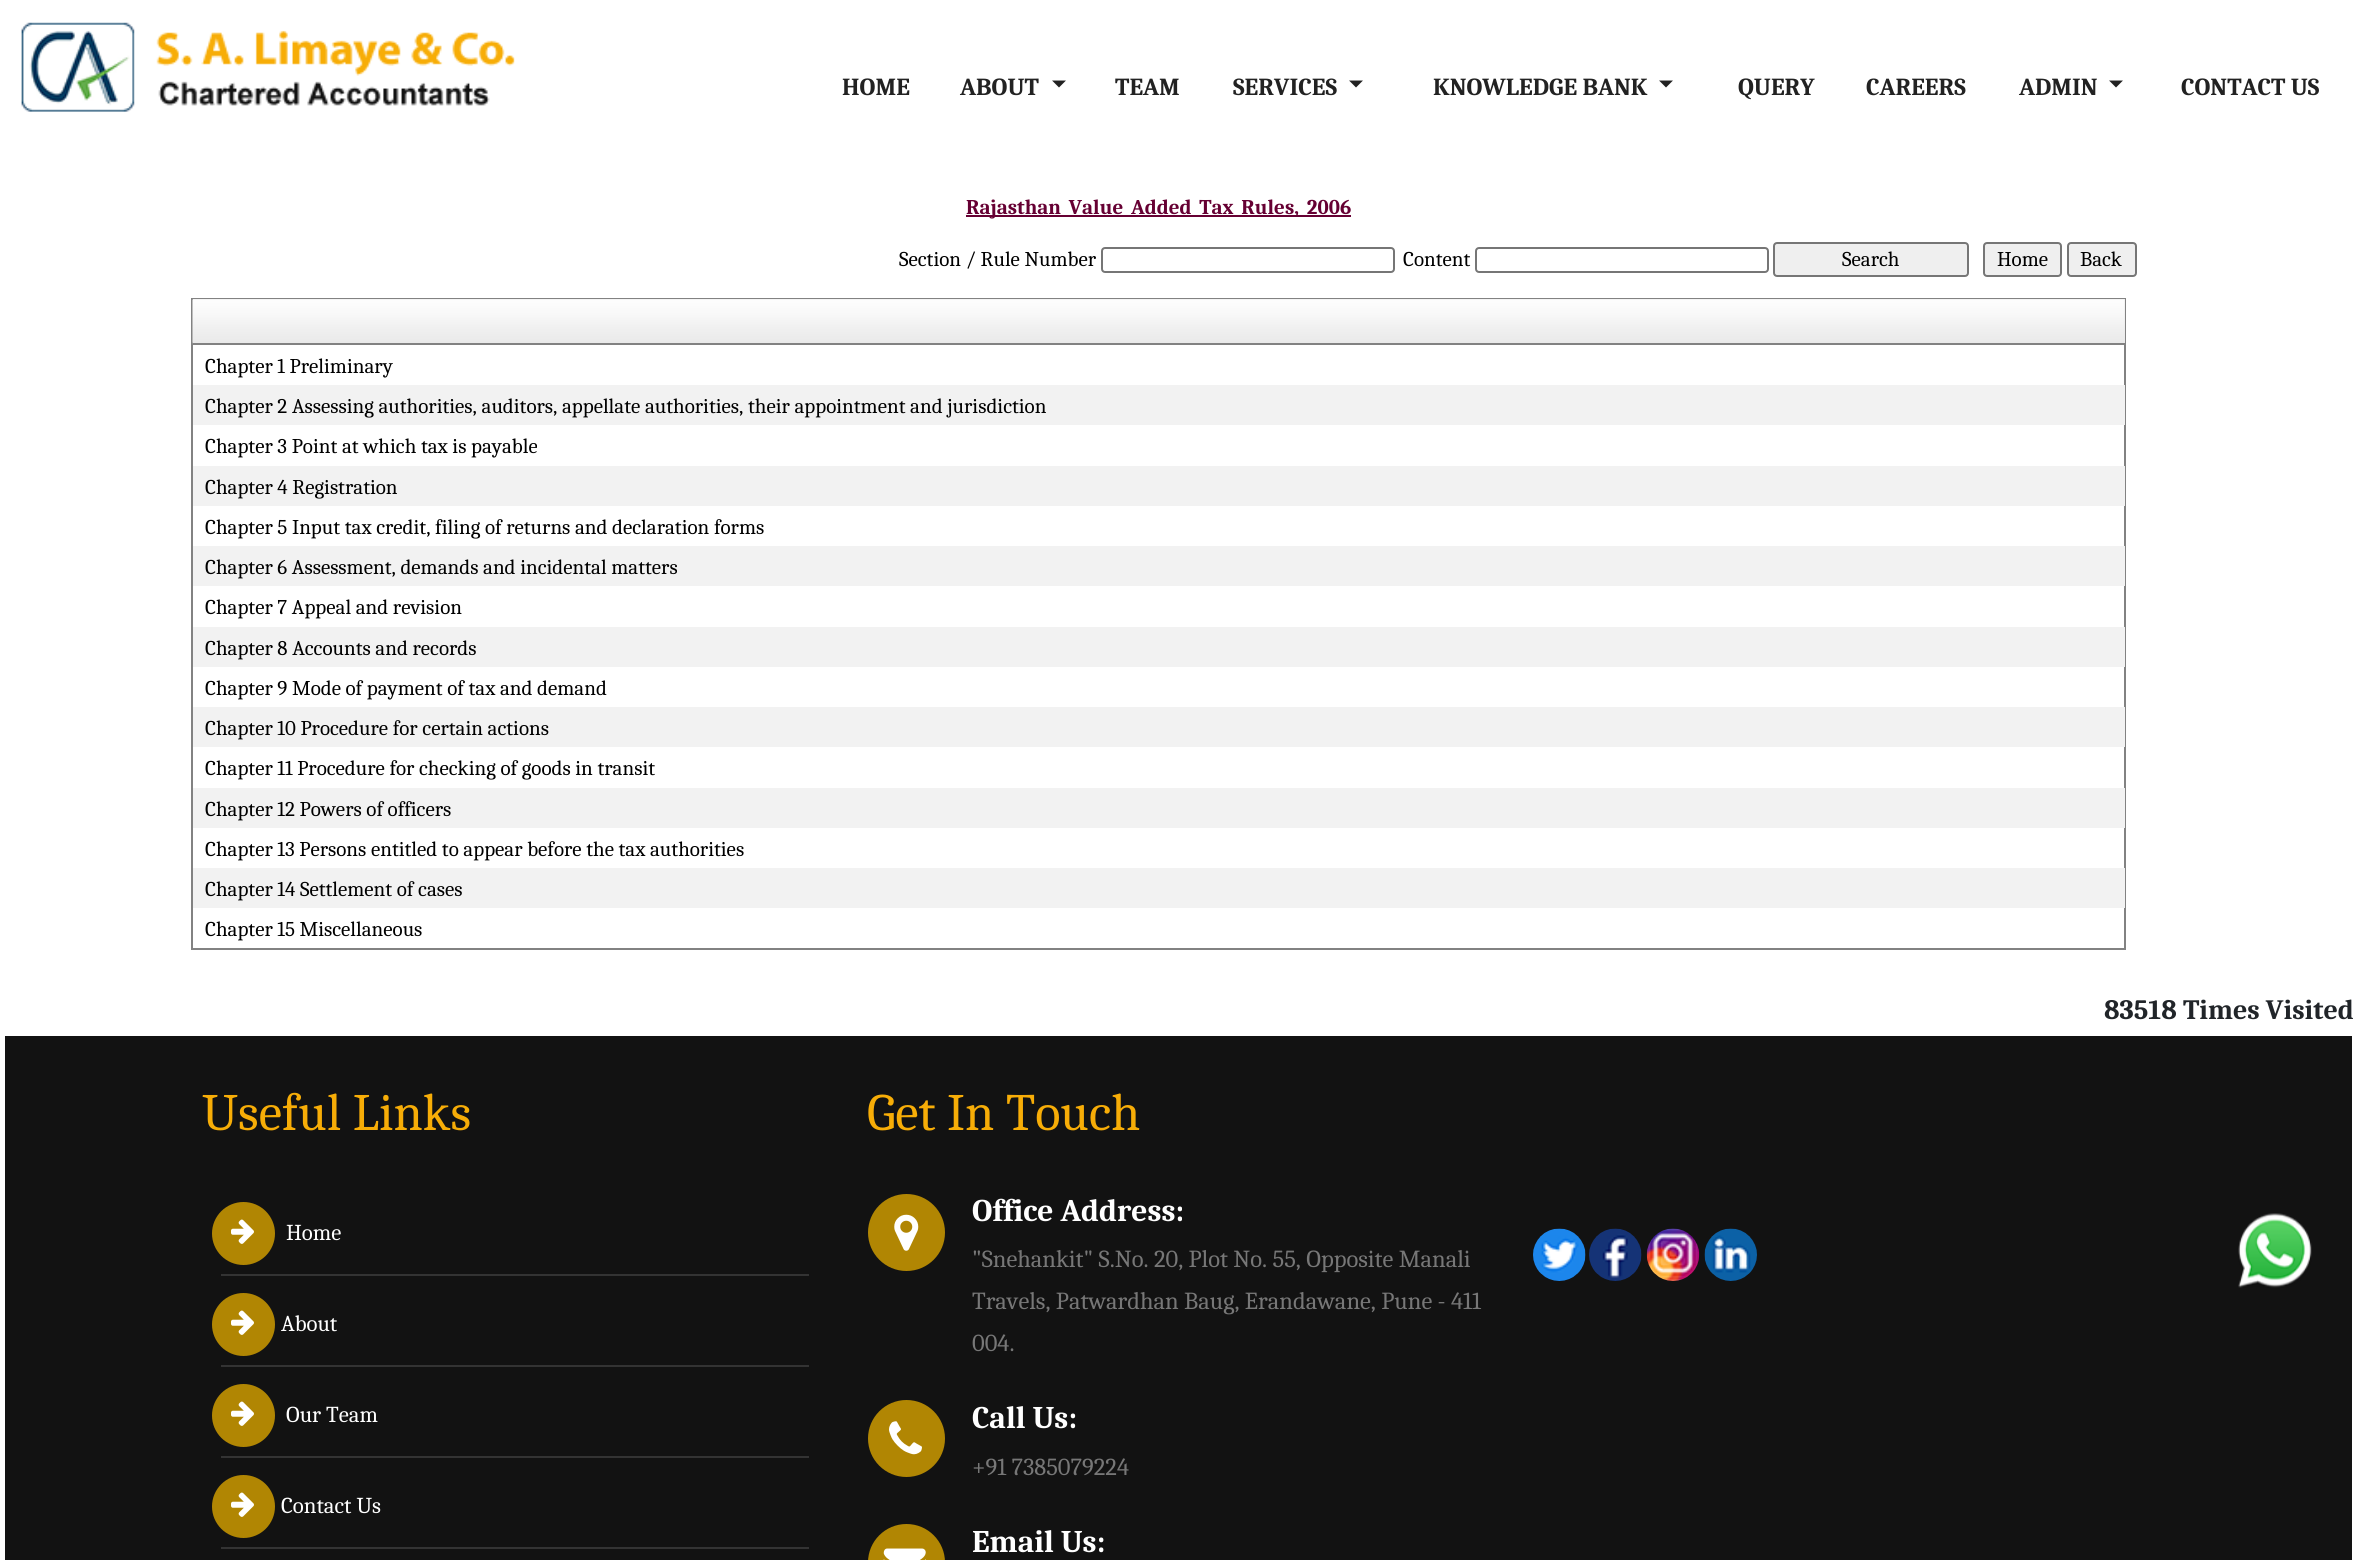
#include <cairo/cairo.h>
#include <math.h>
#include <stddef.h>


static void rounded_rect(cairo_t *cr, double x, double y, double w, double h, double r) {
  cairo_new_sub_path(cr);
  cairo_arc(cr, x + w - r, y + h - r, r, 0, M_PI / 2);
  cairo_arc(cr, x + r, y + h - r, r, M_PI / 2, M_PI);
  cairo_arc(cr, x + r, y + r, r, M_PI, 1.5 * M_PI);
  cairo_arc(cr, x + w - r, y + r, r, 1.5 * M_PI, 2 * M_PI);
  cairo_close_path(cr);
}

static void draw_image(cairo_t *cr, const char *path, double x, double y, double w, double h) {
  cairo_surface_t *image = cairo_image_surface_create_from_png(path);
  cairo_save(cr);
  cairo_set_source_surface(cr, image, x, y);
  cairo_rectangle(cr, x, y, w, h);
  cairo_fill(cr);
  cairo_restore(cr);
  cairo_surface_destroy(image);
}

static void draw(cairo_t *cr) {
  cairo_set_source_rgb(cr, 1, 1, 1);
  cairo_paint(cr);
  draw_image(cr, "images/1.png", 21, 22, 494, 90);
  cairo_set_source_rgb(cr, 34 / 255.0, 34 / 255.0, 34 / 255.0);
  cairo_new_path(cr);
  cairo_move_to(cr, 1052, 80.5);
  cairo_line_to(cr, 1066, 80.5);
  cairo_line_to(cr, 1059, 87.5);
  cairo_close_path(cr);
  cairo_fill(cr);
  cairo_new_path(cr);
  cairo_move_to(cr, 1349, 80.5);
  cairo_line_to(cr, 1363, 80.5);
  cairo_line_to(cr, 1356, 87.5);
  cairo_close_path(cr);
  cairo_fill(cr);
  cairo_new_path(cr);
  cairo_move_to(cr, 1659, 80.5);
  cairo_line_to(cr, 1673, 80.5);
  cairo_line_to(cr, 1666, 87.5);
  cairo_close_path(cr);
  cairo_fill(cr);
  cairo_new_path(cr);
  cairo_move_to(cr, 2109, 80.5);
  cairo_line_to(cr, 2123, 80.5);
  cairo_line_to(cr, 2116, 87.5);
  cairo_close_path(cr);
  cairo_fill(cr);
  cairo_set_source_rgb(cr, 102 / 255.0, 0, 51 / 255.0);
  cairo_rectangle(cr, 966, 215, 385, 2);
  cairo_fill(cr);
  rounded_rect(cr, 1102, 248, 292, 24, 3);
  cairo_set_source_rgb(cr, 118 / 255.0, 118 / 255.0, 118 / 255.0);
  cairo_stroke(cr);
  rounded_rect(cr, 1476, 248, 292, 24, 3);
  cairo_stroke(cr);
  cairo_set_source_rgb(cr, 239 / 255.0, 239 / 255.0, 239 / 255.0);
  rounded_rect(cr, 1774, 243, 194, 33, 3);
  cairo_fill_preserve(cr);
  cairo_set_source_rgb(cr, 118 / 255.0, 118 / 255.0, 118 / 255.0);
  cairo_stroke(cr);
  cairo_set_source_rgb(cr, 239 / 255.0, 239 / 255.0, 239 / 255.0);
  rounded_rect(cr, 1984, 243, 77, 33, 3);
  cairo_fill_preserve(cr);
  cairo_set_source_rgb(cr, 118 / 255.0, 118 / 255.0, 118 / 255.0);
  cairo_stroke(cr);
  cairo_set_source_rgb(cr, 239 / 255.0, 239 / 255.0, 239 / 255.0);
  rounded_rect(cr, 2068, 243, 68, 33, 3);
  cairo_fill_preserve(cr);
  cairo_set_source_rgb(cr, 118 / 255.0, 118 / 255.0, 118 / 255.0);
  cairo_stroke(cr);
  cairo_rectangle(cr, 192, 299, 1933, 650);
  cairo_set_source_rgb(cr, 130 / 255.0, 130 / 255.0, 130 / 255.0);
  cairo_stroke(cr);
  cairo_set_source_rgb(cr, 234 / 255.0, 234 / 255.0, 234 / 255.0);
  cairo_rectangle(cr, 193, 299, 1932, 44);
  cairo_fill(cr);
  draw_image(cr, "images/2.png", 192, 299, 1933, 45);
  cairo_set_source_rgb(cr, 130 / 255.0, 130 / 255.0, 130 / 255.0);
  cairo_rectangle(cr, 193, 343, 1932, 2);
  cairo_fill(cr);
  cairo_set_source_rgb(cr, 242 / 255.0, 242 / 255.0, 242 / 255.0);
  cairo_rectangle(cr, 193, 385, 1932, 40);
  cairo_fill(cr);
  cairo_rectangle(cr, 193, 466, 1932, 40);
  cairo_fill(cr);
  cairo_rectangle(cr, 193, 546, 1932, 40);
  cairo_fill(cr);
  cairo_rectangle(cr, 193, 627, 1932, 40);
  cairo_fill(cr);
  cairo_rectangle(cr, 193, 707, 1932, 40);
  cairo_fill(cr);
  cairo_rectangle(cr, 193, 788, 1932, 40);
  cairo_fill(cr);
  cairo_rectangle(cr, 193, 868, 1932, 40);
  cairo_fill(cr);
  cairo_set_source_rgb(cr, 18 / 255.0, 18 / 255.0, 18 / 255.0);
  cairo_rectangle(cr, 5, 1036, 2347, 524);
  cairo_fill(cr);
  cairo_set_source_rgb(cr, 51 / 255.0, 51 / 255.0, 51 / 255.0);
  cairo_rectangle(cr, 221, 1274, 588, 2);
  cairo_fill(cr);
  cairo_set_source_rgb(cr, 177 / 255.0, 134 / 255.0, 3 / 255.0);
  cairo_arc(cr, 243.5, 1233.5, 31.5, 0, 2 * M_PI);
  cairo_fill(cr);
  draw_image(cr, "images/3.png", 231, 1219, 23, 25);
  cairo_set_source_rgb(cr, 51 / 255.0, 51 / 255.0, 51 / 255.0);
  cairo_rectangle(cr, 221, 1365, 588, 2);
  cairo_fill(cr);
  cairo_set_source_rgb(cr, 177 / 255.0, 134 / 255.0, 3 / 255.0);
  cairo_arc(cr, 243.5, 1324.5, 31.5, 0, 2 * M_PI);
  cairo_fill(cr);
  draw_image(cr, "images/3.png", 231, 1310, 23, 25);
  cairo_set_source_rgb(cr, 51 / 255.0, 51 / 255.0, 51 / 255.0);
  cairo_rectangle(cr, 221, 1456, 588, 2);
  cairo_fill(cr);
  cairo_set_source_rgb(cr, 177 / 255.0, 134 / 255.0, 3 / 255.0);
  cairo_arc(cr, 243.5, 1415.5, 31.5, 0, 2 * M_PI);
  cairo_fill(cr);
  draw_image(cr, "images/3.png", 231, 1401, 23, 25);
  cairo_set_source_rgb(cr, 51 / 255.0, 51 / 255.0, 51 / 255.0);
  cairo_rectangle(cr, 221, 1547, 588, 2);
  cairo_fill(cr);
  cairo_set_source_rgb(cr, 177 / 255.0, 134 / 255.0, 3 / 255.0);
  cairo_arc(cr, 243.5, 1506.5, 31.5, 0, 2 * M_PI);
  cairo_fill(cr);
  draw_image(cr, "images/3.png", 231, 1492, 23, 25);
  cairo_arc(cr, 906.5, 1232.5, 38.5, 0, 2 * M_PI);
  cairo_fill(cr);
  draw_image(cr, "images/4.png", 894, 1214, 25, 37);
  cairo_arc(cr, 906.5, 1438.5, 38.5, 0, 2 * M_PI);
  cairo_fill(cr);
  draw_image(cr, "images/5.png", 889, 1421, 33, 34);
  rounded_rect(cr, 868, 1524, 77, 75, 38.5);
  cairo_fill(cr);
  draw_image(cr, "images/6.png", 883, 1548, 43, 12);
  draw_image(cr, "images/7.png", 1533, 1228, 53, 53);
  draw_image(cr, "images/8.png", 1589, 1228, 53, 53);
  draw_image(cr, "images/9.png", 1646, 1228, 54, 53);
  draw_image(cr, "images/10.png", 1704, 1228, 53, 53);
  draw_image(cr, "images/11.png", 2238, 1213, 74, 75);
  cairo_select_font_face(cr, "Caladea", CAIRO_FONT_SLANT_NORMAL, CAIRO_FONT_WEIGHT_BOLD);
  cairo_set_font_size(cr, 24.5);
  cairo_set_source_rgb(cr, 34 / 255.0, 34 / 255.0, 34 / 255.0);
  cairo_move_to(cr, 842, 95);
  cairo_show_text(cr, "HOME");
  cairo_move_to(cr, 960, 95);
  cairo_show_text(cr, "ABOUT");
  cairo_move_to(cr, 1115, 95);
  cairo_show_text(cr, "TEAM");
  cairo_move_to(cr, 1233, 95);
  cairo_show_text(cr, "SERVICES");
  cairo_move_to(cr, 1433, 95);
  cairo_show_text(cr, "KNOWLEDGE BANK");
  cairo_move_to(cr, 1738, 95);
  cairo_show_text(cr, "QUERY");
  cairo_move_to(cr, 1866, 95);
  cairo_show_text(cr, "CAREERS");
  cairo_move_to(cr, 2019, 95);
  cairo_show_text(cr, "ADMIN");
  cairo_move_to(cr, 2181, 95);
  cairo_show_text(cr, "CONTACT US");
  cairo_set_font_size(cr, 21);
  cairo_set_source_rgb(cr, 102 / 255.0, 0, 51 / 255.0);
  cairo_move_to(cr, 966, 214);
  cairo_show_text(cr, "Rajasthan_Value_Added_Tax_Rules,_2006");
  cairo_select_font_face(cr, "Caladea", CAIRO_FONT_SLANT_NORMAL, CAIRO_FONT_WEIGHT_NORMAL);
  cairo_set_source_rgb(cr, 0, 0, 0);
  cairo_move_to(cr, 899, 266);
  cairo_show_text(cr, "Section / Rule Number");
  cairo_move_to(cr, 1403, 266);
  cairo_show_text(cr, "Content");
  cairo_move_to(cr, 1842, 266);
  cairo_show_text(cr, "Search");
  cairo_move_to(cr, 1997, 266);
  cairo_show_text(cr, "Home");
  cairo_move_to(cr, 2080, 266);
  cairo_show_text(cr, "Back");
  cairo_move_to(cr, 205, 373);
  cairo_show_text(cr, "Chapter 1 Preliminary");
  cairo_move_to(cr, 205, 413);
  cairo_show_text(cr, "Chapter 2 Assessing authorities, auditors, appellate authorities, their appointment and jurisdiction");
  cairo_move_to(cr, 205, 453);
  cairo_show_text(cr, "Chapter 3 Point at which tax is payable");
  cairo_move_to(cr, 205, 494);
  cairo_show_text(cr, "Chapter 4 Registration");
  cairo_move_to(cr, 205, 534);
  cairo_show_text(cr, "Chapter 5 Input tax credit, filing of returns and declaration forms");
  cairo_move_to(cr, 205, 574);
  cairo_show_text(cr, "Chapter 6 Assessment, demands and incidental matters");
  cairo_move_to(cr, 205, 614);
  cairo_show_text(cr, "Chapter 7 Appeal and revision");
  cairo_move_to(cr, 205, 655);
  cairo_show_text(cr, "Chapter 8 Accounts and records");
  cairo_move_to(cr, 205, 695);
  cairo_show_text(cr, "Chapter 9 Mode of payment of tax and demand");
  cairo_move_to(cr, 205, 735);
  cairo_show_text(cr, "Chapter 10 Procedure for certain actions");
  cairo_move_to(cr, 205, 775);
  cairo_show_text(cr, "Chapter 11 Procedure for checking of goods in transit");
  cairo_move_to(cr, 205, 816);
  cairo_show_text(cr, "Chapter 12 Powers of officers");
  cairo_move_to(cr, 205, 856);
  cairo_show_text(cr, "Chapter 13 Persons entitled to appear before the tax authorities");
  cairo_move_to(cr, 205, 896);
  cairo_show_text(cr, "Chapter 14 Settlement of cases");
  cairo_move_to(cr, 205, 936);
  cairo_show_text(cr, "Chapter 15 Miscellaneous");
  cairo_select_font_face(cr, "Caladea", CAIRO_FONT_SLANT_NORMAL, CAIRO_FONT_WEIGHT_BOLD);
  cairo_set_font_size(cr, 28);
  cairo_set_source_rgb(cr, 33 / 255.0, 37 / 255.0, 41 / 255.0);
  cairo_move_to(cr, 2104, 1019);
  cairo_show_text(cr, "83518 Times Visited");
  cairo_select_font_face(cr, "Caladea", CAIRO_FONT_SLANT_NORMAL, CAIRO_FONT_WEIGHT_NORMAL);
  cairo_set_font_size(cr, 52.5);
  cairo_set_source_rgb(cr, 247 / 255.0, 173 / 255.0, 7 / 255.0);
  cairo_move_to(cr, 202, 1130);
  cairo_show_text(cr, "Useful Links");
  cairo_set_font_size(cr, 22.75);
  cairo_set_source_rgb(cr, 1, 1, 1);
  cairo_move_to(cr, 286, 1240);
  cairo_show_text(cr, "Home");
  cairo_move_to(cr, 281, 1331);
  cairo_show_text(cr, "About");
  cairo_move_to(cr, 286, 1422);
  cairo_show_text(cr, "Our Team");
  cairo_move_to(cr, 281, 1513);
  cairo_show_text(cr, "Contact Us");
  cairo_set_font_size(cr, 52.5);
  cairo_set_source_rgb(cr, 247 / 255.0, 173 / 255.0, 7 / 255.0);
  cairo_move_to(cr, 867, 1130);
  cairo_show_text(cr, "Get In Touch");
  cairo_select_font_face(cr, "Caladea", CAIRO_FONT_SLANT_NORMAL, CAIRO_FONT_WEIGHT_BOLD);
  cairo_set_font_size(cr, 31.5);
  cairo_set_source_rgb(cr, 1, 1, 1);
  cairo_move_to(cr, 972, 1221);
  cairo_show_text(cr, "Office Address:");
  cairo_select_font_face(cr, "Caladea", CAIRO_FONT_SLANT_NORMAL, CAIRO_FONT_WEIGHT_NORMAL);
  cairo_set_font_size(cr, 24.5);
  cairo_set_source_rgb(cr, 119 / 255.0, 119 / 255.0, 119 / 255.0);
  cairo_move_to(cr, 972, 1267);
  cairo_show_text(cr, "\"Snehankit\" S.No. 20, Plot No. 55, Opposite Manali");
  cairo_move_to(cr, 972, 1309);
  cairo_show_text(cr, "Travels, Patwardhan Baug, Erandawane, Pune - 411");
  cairo_move_to(cr, 972, 1351);
  cairo_show_text(cr, "004.");
  cairo_select_font_face(cr, "Caladea", CAIRO_FONT_SLANT_NORMAL, CAIRO_FONT_WEIGHT_BOLD);
  cairo_set_font_size(cr, 31.5);
  cairo_set_source_rgb(cr, 1, 1, 1);
  cairo_move_to(cr, 972, 1428);
  cairo_show_text(cr, "Call Us:");
  cairo_select_font_face(cr, "Caladea", CAIRO_FONT_SLANT_NORMAL, CAIRO_FONT_WEIGHT_NORMAL);
  cairo_set_font_size(cr, 24.5);
  cairo_set_source_rgb(cr, 119 / 255.0, 119 / 255.0, 119 / 255.0);
  cairo_move_to(cr, 972, 1475);
  cairo_show_text(cr, "+91 7385079224");
  cairo_select_font_face(cr, "Caladea", CAIRO_FONT_SLANT_NORMAL, CAIRO_FONT_WEIGHT_BOLD);
  cairo_set_font_size(cr, 31.5);
  cairo_set_source_rgb(cr, 1, 1, 1);
  cairo_move_to(cr, 972, 1552);
  cairo_show_text(cr, "Email Us:");
}

int main(void) {
  cairo_surface_t *surface = cairo_image_surface_create(CAIRO_FORMAT_RGB24, 2357, 1560);
  cairo_t *cr = cairo_create(surface);
  cairo_font_options_t *options = cairo_font_options_create();
  cairo_font_options_set_hint_metrics(options, CAIRO_HINT_METRICS_OFF);
  cairo_font_options_set_hint_style(options, CAIRO_HINT_STYLE_NONE);
  cairo_set_font_options(cr, options);
  cairo_set_miter_limit(cr, 4);
  draw(cr);
  cairo_surface_write_to_png(surface, "out.png");
  cairo_font_options_destroy(options);
  cairo_destroy(cr);
  cairo_surface_destroy(surface);
  return 0;
}
